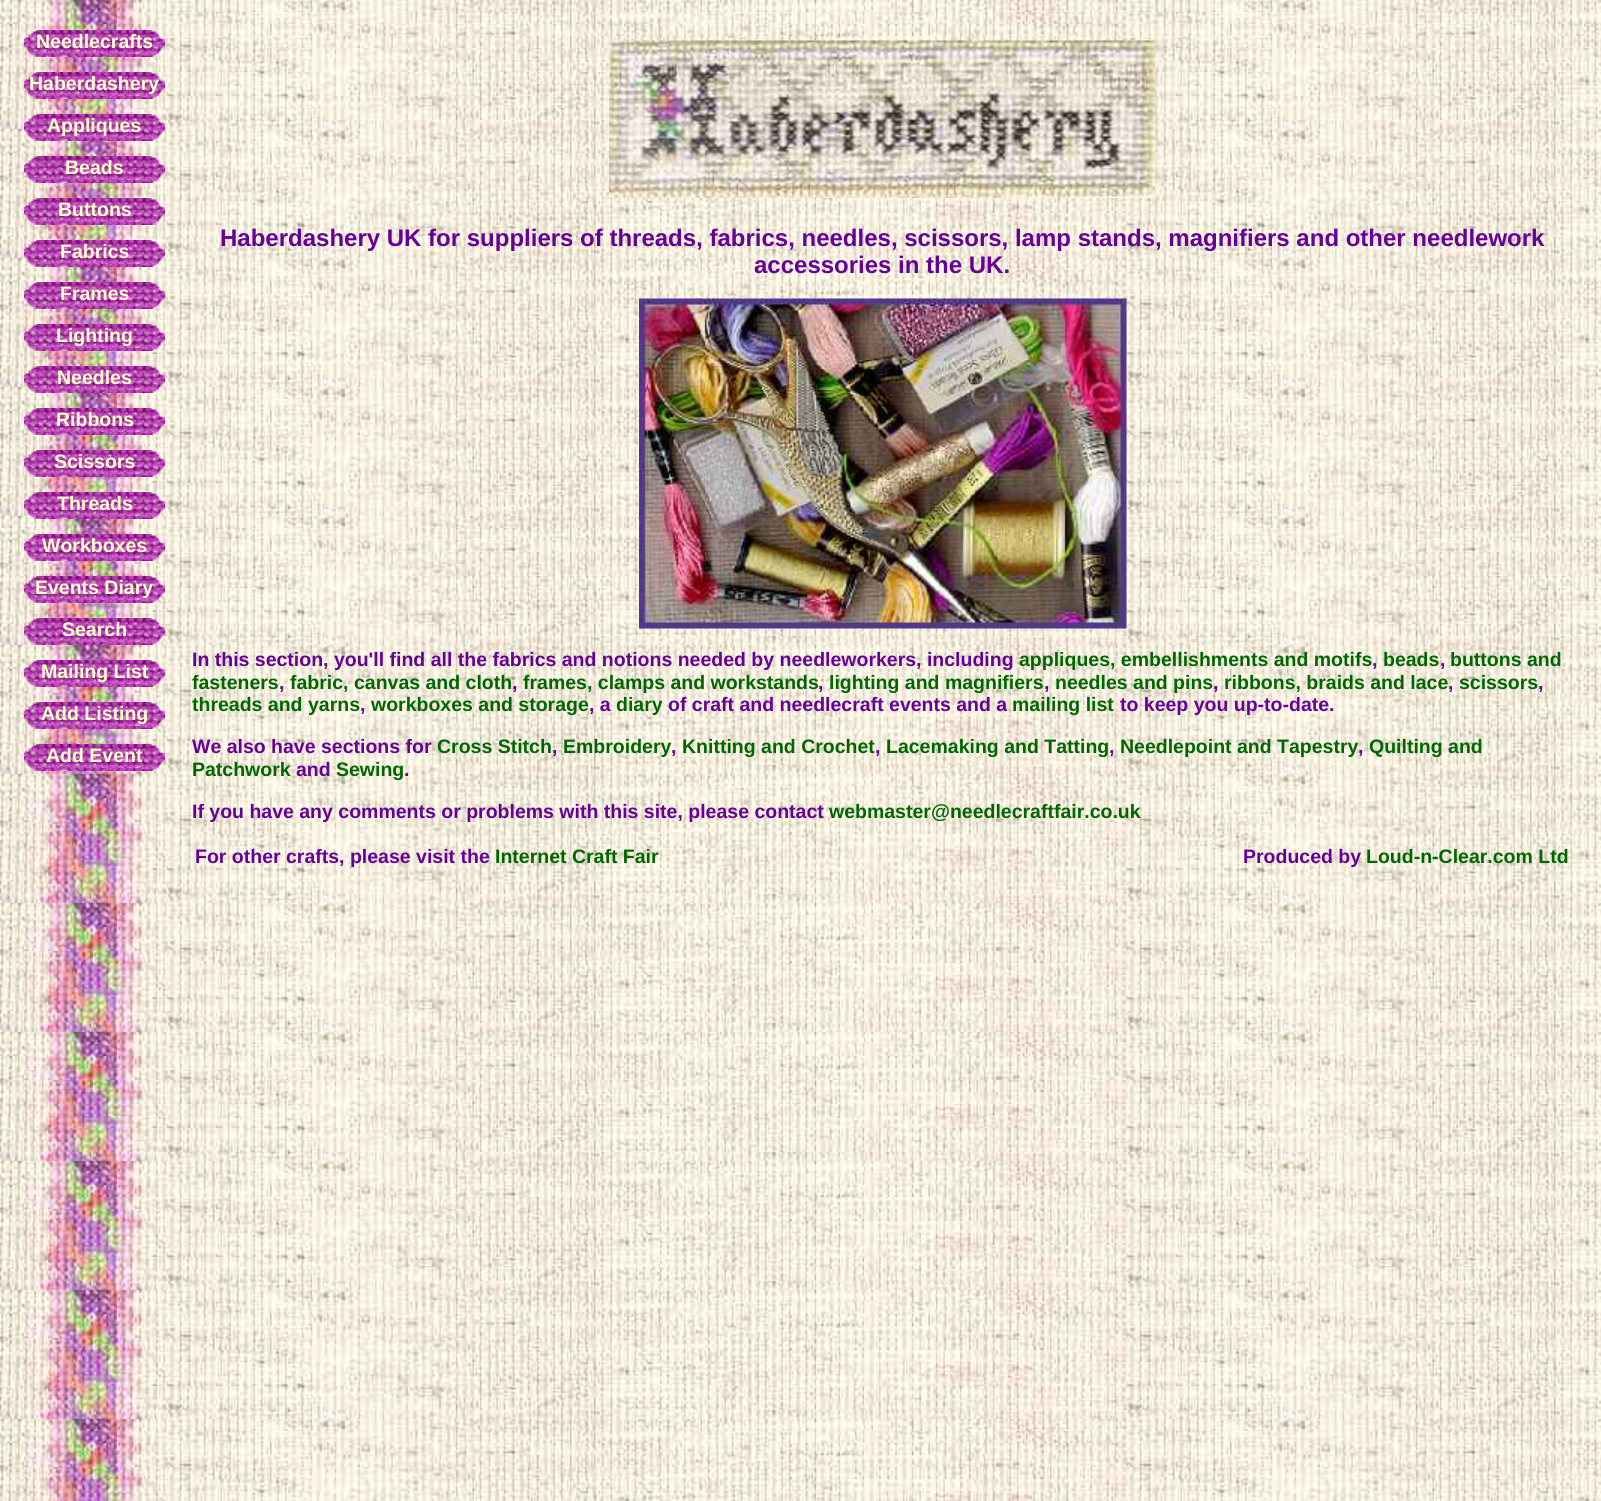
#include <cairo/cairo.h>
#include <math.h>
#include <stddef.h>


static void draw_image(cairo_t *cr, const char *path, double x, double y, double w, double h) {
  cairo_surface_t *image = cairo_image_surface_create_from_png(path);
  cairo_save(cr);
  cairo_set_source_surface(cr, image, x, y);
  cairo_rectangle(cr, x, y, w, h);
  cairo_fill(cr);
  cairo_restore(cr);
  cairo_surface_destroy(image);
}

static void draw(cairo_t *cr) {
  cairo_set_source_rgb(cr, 1, 1, 1);
  cairo_paint(cr);
  draw_image(cr, "images/1.png", 0, 0, 1601, 1501);
  draw_image(cr, "images/2.png", 24, 30, 141, 27);
  draw_image(cr, "images/3.png", 24, 72, 141, 27);
  draw_image(cr, "images/4.png", 24, 114, 141, 27);
  draw_image(cr, "images/5.png", 24, 156, 141, 27);
  draw_image(cr, "images/6.png", 24, 198, 141, 27);
  draw_image(cr, "images/7.png", 24, 240, 141, 27);
  draw_image(cr, "images/8.png", 24, 282, 141, 27);
  draw_image(cr, "images/9.png", 24, 324, 141, 27);
  draw_image(cr, "images/10.png", 24, 366, 141, 27);
  draw_image(cr, "images/11.png", 24, 408, 141, 27);
  draw_image(cr, "images/12.png", 24, 450, 141, 27);
  draw_image(cr, "images/13.png", 24, 492, 141, 27);
  draw_image(cr, "images/14.png", 24, 534, 141, 27);
  draw_image(cr, "images/15.png", 24, 576, 141, 27);
  draw_image(cr, "images/16.png", 24, 618, 141, 27);
  draw_image(cr, "images/17.png", 24, 660, 141, 27);
  draw_image(cr, "images/18.png", 24, 702, 141, 27);
  draw_image(cr, "images/19.png", 24, 744, 141, 27);
  draw_image(cr, "images/20.png", 609, 40, 546, 158);
  draw_image(cr, "images/21.png", 639, 298, 488, 331);
  cairo_select_font_face(cr, "Liberation Sans", CAIRO_FONT_SLANT_NORMAL, CAIRO_FONT_WEIGHT_BOLD);
  cairo_set_font_size(cr, 19.5);
  cairo_set_source_rgb(cr, 1, 1, 204 / 255.0);
  cairo_move_to(cr, 36, 48);
  cairo_show_text(cr, "Needlecrafts");
  cairo_move_to(cr, 29, 90);
  cairo_show_text(cr, "Haberdashery");
  cairo_move_to(cr, 47, 132);
  cairo_show_text(cr, "Appliques");
  cairo_move_to(cr, 65, 174);
  cairo_show_text(cr, "Beads");
  cairo_move_to(cr, 58, 216);
  cairo_show_text(cr, "Buttons");
  cairo_move_to(cr, 60, 258);
  cairo_show_text(cr, "Fabrics");
  cairo_move_to(cr, 60, 300);
  cairo_show_text(cr, "Frames");
  cairo_move_to(cr, 56, 342);
  cairo_show_text(cr, "Lighting");
  cairo_move_to(cr, 57, 384);
  cairo_show_text(cr, "Needles");
  cairo_move_to(cr, 56, 426);
  cairo_show_text(cr, "Ribbons");
  cairo_move_to(cr, 54, 468);
  cairo_show_text(cr, "Scissors");
  cairo_move_to(cr, 57, 510);
  cairo_show_text(cr, "Threads");
  cairo_move_to(cr, 42, 552);
  cairo_show_text(cr, "Workboxes");
  cairo_move_to(cr, 35, 594);
  cairo_show_text(cr, "Events Diary");
  cairo_move_to(cr, 62, 636);
  cairo_show_text(cr, "Search");
  cairo_move_to(cr, 41, 678);
  cairo_show_text(cr, "Mailing List");
  cairo_move_to(cr, 41, 720);
  cairo_show_text(cr, "Add Listing");
  cairo_move_to(cr, 46, 762);
  cairo_show_text(cr, "Add Event");
  cairo_set_font_size(cr, 24);
  cairo_set_source_rgb(cr, 102 / 255.0, 0, 153 / 255.0);
  cairo_move_to(cr, 220, 246);
  cairo_show_text(cr, "Haberdashery UK for suppliers of threads, fabrics, needles, scissors, lamp stands, magnifiers and other needlework");
  cairo_move_to(cr, 754, 273);
  cairo_show_text(cr, "accessories in the UK.");
  cairo_set_font_size(cr, 19.5);
  cairo_move_to(cr, 192, 666);
  cairo_show_text(cr, "In this section, you'll find all the fabrics and notions needed by needleworkers, including");
  cairo_set_source_rgb(cr, 0, 102 / 255.0, 0);
  cairo_move_to(cr, 1019, 666);
  cairo_show_text(cr, "appliques, embellishments and motifs");
  cairo_set_source_rgb(cr, 102 / 255.0, 0, 153 / 255.0);
  cairo_move_to(cr, 1372, 666);
  cairo_show_text(cr, ",");
  cairo_set_source_rgb(cr, 0, 102 / 255.0, 0);
  cairo_move_to(cr, 1383, 666);
  cairo_show_text(cr, "beads");
  cairo_set_source_rgb(cr, 102 / 255.0, 0, 153 / 255.0);
  cairo_move_to(cr, 1440, 666);
  cairo_show_text(cr, ",");
  cairo_set_source_rgb(cr, 0, 102 / 255.0, 0);
  cairo_move_to(cr, 1450, 666);
  cairo_show_text(cr, "buttons and");
  cairo_move_to(cr, 192, 689);
  cairo_show_text(cr, "fasteners");
  cairo_set_source_rgb(cr, 102 / 255.0, 0, 153 / 255.0);
  cairo_move_to(cr, 279, 689);
  cairo_show_text(cr, ",");
  cairo_set_source_rgb(cr, 0, 102 / 255.0, 0);
  cairo_move_to(cr, 290, 689);
  cairo_show_text(cr, "fabric, canvas and cloth");
  cairo_set_source_rgb(cr, 102 / 255.0, 0, 153 / 255.0);
  cairo_move_to(cr, 512, 689);
  cairo_show_text(cr, ",");
  cairo_set_source_rgb(cr, 0, 102 / 255.0, 0);
  cairo_move_to(cr, 523, 689);
  cairo_show_text(cr, "frames, clamps and workstands");
  cairo_set_source_rgb(cr, 102 / 255.0, 0, 153 / 255.0);
  cairo_move_to(cr, 818, 689);
  cairo_show_text(cr, ",");
  cairo_set_source_rgb(cr, 0, 102 / 255.0, 0);
  cairo_move_to(cr, 829, 689);
  cairo_show_text(cr, "lighting and magnifiers");
  cairo_set_source_rgb(cr, 102 / 255.0, 0, 153 / 255.0);
  cairo_move_to(cr, 1044, 689);
  cairo_show_text(cr, ",");
  cairo_set_source_rgb(cr, 0, 102 / 255.0, 0);
  cairo_move_to(cr, 1055, 689);
  cairo_show_text(cr, "needles and pins");
  cairo_set_source_rgb(cr, 102 / 255.0, 0, 153 / 255.0);
  cairo_move_to(cr, 1213, 689);
  cairo_show_text(cr, ",");
  cairo_set_source_rgb(cr, 0, 102 / 255.0, 0);
  cairo_move_to(cr, 1224, 689);
  cairo_show_text(cr, "ribbons, braids and lace");
  cairo_set_source_rgb(cr, 102 / 255.0, 0, 153 / 255.0);
  cairo_move_to(cr, 1448, 689);
  cairo_show_text(cr, ",");
  cairo_set_source_rgb(cr, 0, 102 / 255.0, 0);
  cairo_move_to(cr, 1459, 689);
  cairo_show_text(cr, "scissors");
  cairo_set_source_rgb(cr, 102 / 255.0, 0, 153 / 255.0);
  cairo_move_to(cr, 1538, 689);
  cairo_show_text(cr, ",");
  cairo_set_source_rgb(cr, 0, 102 / 255.0, 0);
  cairo_move_to(cr, 192, 711);
  cairo_show_text(cr, "threads and yarns");
  cairo_set_source_rgb(cr, 102 / 255.0, 0, 153 / 255.0);
  cairo_move_to(cr, 360, 711);
  cairo_show_text(cr, ",");
  cairo_set_source_rgb(cr, 0, 102 / 255.0, 0);
  cairo_move_to(cr, 371, 711);
  cairo_show_text(cr, "workboxes and storage");
  cairo_set_source_rgb(cr, 102 / 255.0, 0, 153 / 255.0);
  cairo_move_to(cr, 589, 711);
  cairo_show_text(cr, ", a");
  cairo_set_source_rgb(cr, 0, 102 / 255.0, 0);
  cairo_move_to(cr, 616, 711);
  cairo_show_text(cr, "diary");
  cairo_set_source_rgb(cr, 102 / 255.0, 0, 153 / 255.0);
  cairo_move_to(cr, 668, 711);
  cairo_show_text(cr, "of craft and needlecraft events and a");
  cairo_set_source_rgb(cr, 0, 102 / 255.0, 0);
  cairo_move_to(cr, 1012, 711);
  cairo_show_text(cr, "mailing list");
  cairo_set_source_rgb(cr, 102 / 255.0, 0, 153 / 255.0);
  cairo_move_to(cr, 1120, 711);
  cairo_show_text(cr, "to keep you up-to-date.");
  cairo_move_to(cr, 192, 753);
  cairo_show_text(cr, "We also have sections for");
  cairo_set_source_rgb(cr, 0, 102 / 255.0, 0);
  cairo_move_to(cr, 437, 753);
  cairo_show_text(cr, "Cross Stitch");
  cairo_set_source_rgb(cr, 102 / 255.0, 0, 153 / 255.0);
  cairo_move_to(cr, 552, 753);
  cairo_show_text(cr, ",");
  cairo_set_source_rgb(cr, 0, 102 / 255.0, 0);
  cairo_move_to(cr, 563, 753);
  cairo_show_text(cr, "Embroidery");
  cairo_set_source_rgb(cr, 102 / 255.0, 0, 153 / 255.0);
  cairo_move_to(cr, 671, 753);
  cairo_show_text(cr, ",");
  cairo_set_source_rgb(cr, 0, 102 / 255.0, 0);
  cairo_move_to(cr, 682, 753);
  cairo_show_text(cr, "Knitting and Crochet");
  cairo_set_source_rgb(cr, 102 / 255.0, 0, 153 / 255.0);
  cairo_move_to(cr, 875, 753);
  cairo_show_text(cr, ",");
  cairo_set_source_rgb(cr, 0, 102 / 255.0, 0);
  cairo_move_to(cr, 886, 753);
  cairo_show_text(cr, "Lacemaking and Tatting");
  cairo_set_source_rgb(cr, 102 / 255.0, 0, 153 / 255.0);
  cairo_move_to(cr, 1109, 753);
  cairo_show_text(cr, ",");
  cairo_set_source_rgb(cr, 0, 102 / 255.0, 0);
  cairo_move_to(cr, 1120, 753);
  cairo_show_text(cr, "Needlepoint and Tapestry");
  cairo_set_source_rgb(cr, 102 / 255.0, 0, 153 / 255.0);
  cairo_move_to(cr, 1358, 753);
  cairo_show_text(cr, ",");
  cairo_set_source_rgb(cr, 0, 102 / 255.0, 0);
  cairo_move_to(cr, 1369, 753);
  cairo_show_text(cr, "Quilting and");
  cairo_move_to(cr, 192, 776);
  cairo_show_text(cr, "Patchwork");
  cairo_set_source_rgb(cr, 102 / 255.0, 0, 153 / 255.0);
  cairo_move_to(cr, 296, 776);
  cairo_show_text(cr, "and");
  cairo_set_source_rgb(cr, 0, 102 / 255.0, 0);
  cairo_move_to(cr, 336, 776);
  cairo_show_text(cr, "Sewing");
  cairo_set_source_rgb(cr, 102 / 255.0, 0, 153 / 255.0);
  cairo_move_to(cr, 404, 776);
  cairo_show_text(cr, ".");
  cairo_move_to(cr, 192, 818);
  cairo_show_text(cr, "If you have any comments or problems with this site, please contact");
  cairo_set_source_rgb(cr, 0, 102 / 255.0, 0);
  cairo_move_to(cr, 829, 818);
  cairo_show_text(cr, "webmaster@needlecraftfair.co.uk");
  cairo_set_source_rgb(cr, 102 / 255.0, 0, 153 / 255.0);
  cairo_move_to(cr, 195, 863);
  cairo_show_text(cr, "For other crafts, please visit the");
  cairo_set_source_rgb(cr, 0, 102 / 255.0, 0);
  cairo_move_to(cr, 495, 863);
  cairo_show_text(cr, "Internet Craft Fair");
  cairo_set_source_rgb(cr, 102 / 255.0, 0, 153 / 255.0);
  cairo_move_to(cr, 1243, 863);
  cairo_show_text(cr, "Produced by");
  cairo_set_source_rgb(cr, 0, 102 / 255.0, 0);
  cairo_move_to(cr, 1366, 863);
  cairo_show_text(cr, "Loud-n-Clear.com Ltd");
}

int main(void) {
  cairo_surface_t *surface = cairo_image_surface_create(CAIRO_FORMAT_RGB24, 1601, 1501);
  cairo_t *cr = cairo_create(surface);
  cairo_font_options_t *options = cairo_font_options_create();
  cairo_font_options_set_hint_metrics(options, CAIRO_HINT_METRICS_OFF);
  cairo_font_options_set_hint_style(options, CAIRO_HINT_STYLE_NONE);
  cairo_set_font_options(cr, options);
  cairo_set_miter_limit(cr, 4);
  draw(cr);
  cairo_surface_write_to_png(surface, "out.png");
  cairo_font_options_destroy(options);
  cairo_destroy(cr);
  cairo_surface_destroy(surface);
  return 0;
}
